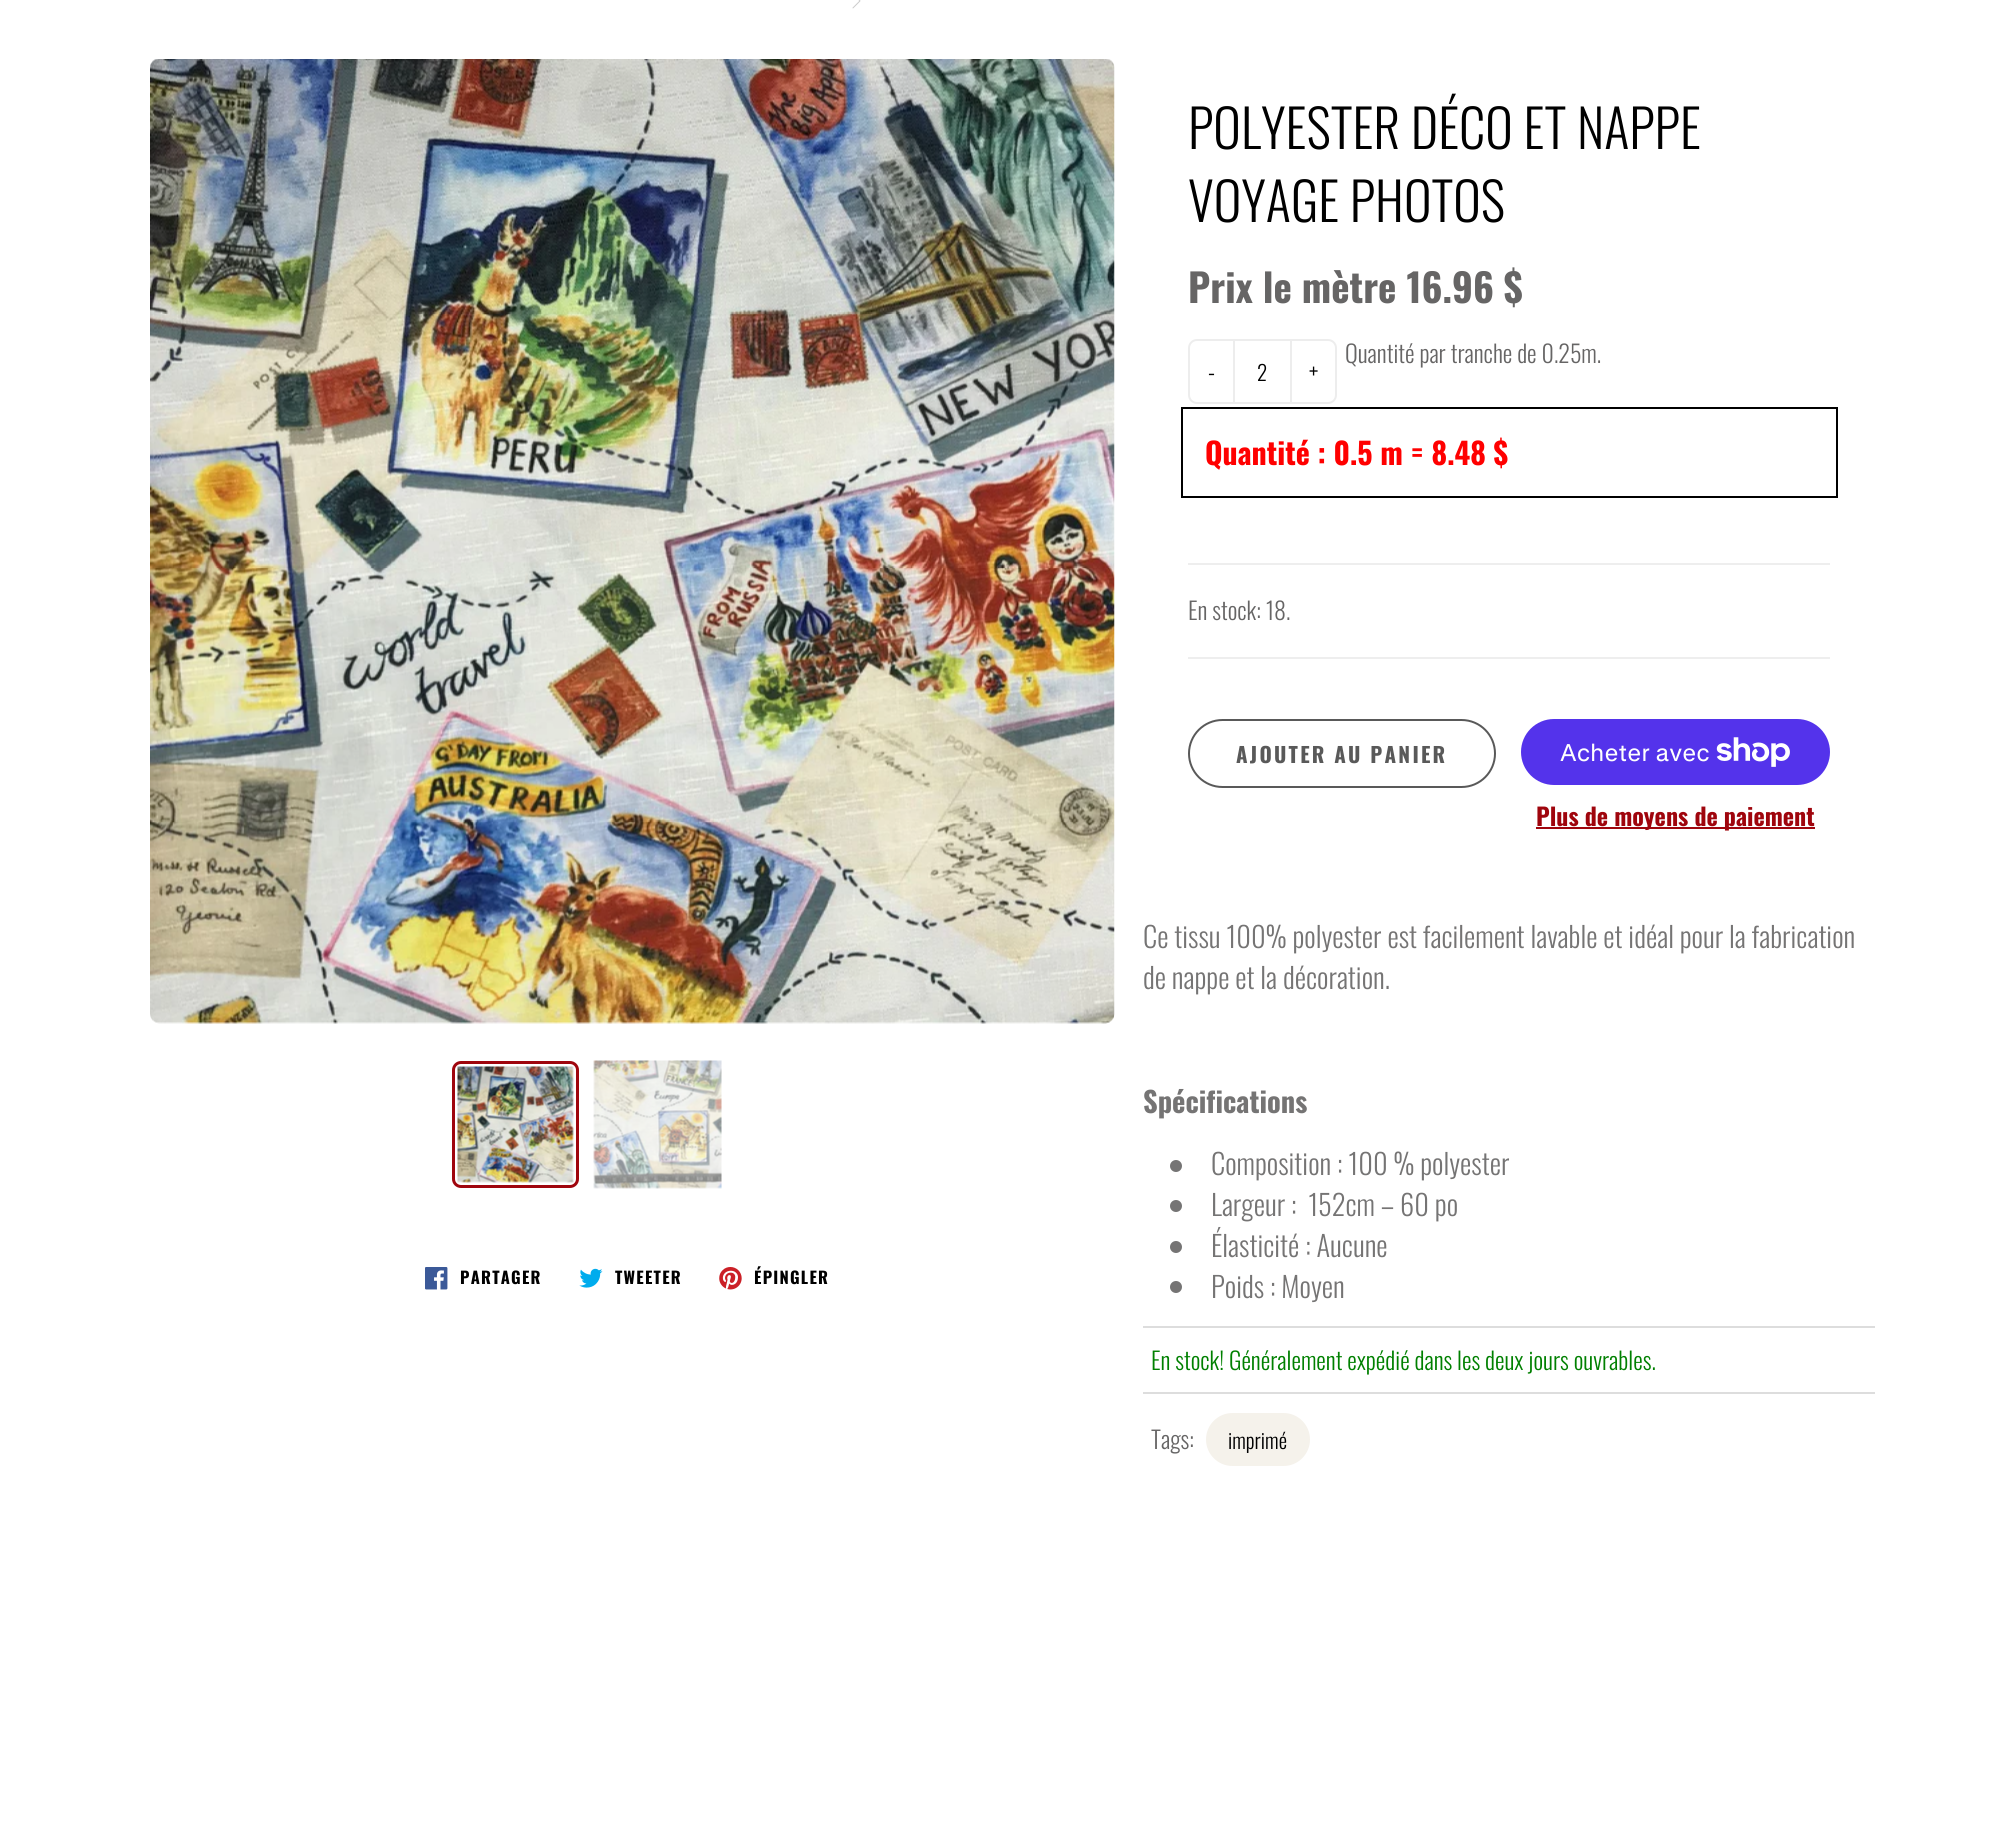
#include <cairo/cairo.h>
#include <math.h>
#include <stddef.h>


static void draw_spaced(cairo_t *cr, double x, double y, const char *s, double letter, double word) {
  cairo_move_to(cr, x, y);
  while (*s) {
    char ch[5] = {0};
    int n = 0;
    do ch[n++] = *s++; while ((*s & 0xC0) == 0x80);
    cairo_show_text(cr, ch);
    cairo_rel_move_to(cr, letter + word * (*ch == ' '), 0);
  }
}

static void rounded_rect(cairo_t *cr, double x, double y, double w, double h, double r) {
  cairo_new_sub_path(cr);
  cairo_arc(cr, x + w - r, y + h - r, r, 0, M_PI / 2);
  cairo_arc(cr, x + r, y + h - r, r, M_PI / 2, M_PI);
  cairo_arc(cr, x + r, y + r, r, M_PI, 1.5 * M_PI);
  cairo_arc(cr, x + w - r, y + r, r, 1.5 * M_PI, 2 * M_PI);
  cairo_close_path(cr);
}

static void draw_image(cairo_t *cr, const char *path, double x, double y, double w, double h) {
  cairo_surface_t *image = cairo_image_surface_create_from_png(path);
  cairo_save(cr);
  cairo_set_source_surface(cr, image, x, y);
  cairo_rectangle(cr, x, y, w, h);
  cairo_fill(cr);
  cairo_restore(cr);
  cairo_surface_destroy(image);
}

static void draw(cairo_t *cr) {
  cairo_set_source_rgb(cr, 1, 1, 1);
  cairo_paint(cr);
  draw_image(cr, "images/1.png", 852, 0, 9, 9);
  draw_image(cr, "images/2.png", 150, 59, 965, 965);
  rounded_rect(cr, 453.5, 1062.5, 124, 124, 7.5);
  cairo_set_source_rgb(cr, 159 / 255.0, 5 / 255.0, 13 / 255.0);
  cairo_set_line_width(cr, 3);
  cairo_stroke(cr);
  draw_image(cr, "images/3.png", 457, 1066, 117, 117);
  draw_image(cr, "images/4.png", 593, 1060, 129, 129);
  draw_image(cr, "images/5.png", 425, 1267, 23, 23);
  draw_image(cr, "images/6.png", 579, 1268, 24, 20);
  draw_image(cr, "images/7.png", 719, 1267, 23, 23);
  rounded_rect(cr, 1189, 340, 147, 63, 8);
  cairo_set_source_rgb(cr, 237 / 255.0, 237 / 255.0, 237 / 255.0);
  cairo_set_line_width(cr, 2);
  cairo_stroke(cr);
  cairo_rectangle(cr, 1290, 341, 2, 61);
  cairo_fill(cr);
  cairo_rectangle(cr, 1233, 341, 2, 61);
  cairo_fill(cr);
  cairo_rectangle(cr, 1182, 408, 655, 89);
  cairo_set_source_rgb(cr, 0, 0, 0);
  cairo_stroke(cr);
  cairo_set_source_rgb(cr, 238 / 255.0, 238 / 255.0, 238 / 255.0);
  cairo_rectangle(cr, 1188, 563, 642, 2);
  cairo_fill(cr);
  cairo_rectangle(cr, 1188, 657, 642, 2);
  cairo_fill(cr);
  rounded_rect(cr, 1189, 720, 306, 67, 33.5);
  cairo_set_source_rgb(cr, 89 / 255.0, 89 / 255.0, 89 / 255.0);
  cairo_stroke(cr);
  cairo_set_source_rgb(cr, 84 / 255.0, 51 / 255.0, 235 / 255.0);
  rounded_rect(cr, 1521, 719, 309, 66, 33);
  cairo_fill(cr);
  draw_image(cr, "images/8.png", 1716, 737, 74, 30);
  cairo_set_source_rgb(cr, 159 / 255.0, 5 / 255.0, 13 / 255.0);
  cairo_rectangle(cr, 1536, 827, 279, 2);
  cairo_fill(cr);
  cairo_set_source_rgb(cr, 117 / 255.0, 116 / 255.0, 116 / 255.0);
  cairo_arc(cr, 1176, 1166, 6, 0, 2 * M_PI);
  cairo_fill(cr);
  cairo_arc(cr, 1176, 1206, 6, 0, 2 * M_PI);
  cairo_fill(cr);
  cairo_arc(cr, 1176, 1247, 6, 0, 2 * M_PI);
  cairo_fill(cr);
  cairo_arc(cr, 1176, 1287, 6, 0, 2 * M_PI);
  cairo_fill(cr);
  cairo_set_source_rgb(cr, 221 / 255.0, 221 / 255.0, 221 / 255.0);
  cairo_rectangle(cr, 1143, 1326, 732, 2);
  cairo_fill(cr);
  cairo_rectangle(cr, 1143, 1392, 732, 2);
  cairo_fill(cr);
  cairo_set_source_rgb(cr, 245 / 255.0, 242 / 255.0, 235 / 255.0);
  rounded_rect(cr, 1206, 1413, 104, 53, 26.5);
  cairo_fill(cr);
  cairo_select_font_face(cr, "Oswald", CAIRO_FONT_SLANT_NORMAL, CAIRO_FONT_WEIGHT_BOLD);
  cairo_set_font_size(cr, 16.5);
  cairo_set_source_rgb(cr, 0, 0, 0);
  draw_spaced(cr, 460, 1284, "PARTAGER", 1.25, 0);
  draw_spaced(cr, 615, 1284, "TWEETER", 1.25, 0);
  draw_spaced(cr, 754, 1284, "ÉPINGLER", 1.25, 0);
  cairo_select_font_face(cr, "Oswald Light", CAIRO_FONT_SLANT_NORMAL, CAIRO_FONT_WEIGHT_NORMAL);
  cairo_set_font_size(cr, 52.5);
  cairo_move_to(cr, 1188, 149);
  cairo_show_text(cr, "POLYESTER DÉCO ET NAPPE");
  cairo_move_to(cr, 1188, 222);
  cairo_show_text(cr, "VOYAGE PHOTOS");
  cairo_select_font_face(cr, "Oswald", CAIRO_FONT_SLANT_NORMAL, CAIRO_FONT_WEIGHT_BOLD);
  cairo_set_font_size(cr, 39);
  cairo_set_source_rgb(cr, 102 / 255.0, 101 / 255.0, 101 / 255.0);
  cairo_move_to(cr, 1188, 303);
  cairo_show_text(cr, "Prix le mètre 16.96 $");
  cairo_select_font_face(cr, "Oswald Light", CAIRO_FONT_SLANT_NORMAL, CAIRO_FONT_WEIGHT_NORMAL);
  cairo_set_font_size(cr, 24);
  cairo_move_to(cr, 1345, 363);
  cairo_show_text(cr, "Quantité par tranche de 0.25m.");
  cairo_set_source_rgb(cr, 0, 0, 0);
  cairo_move_to(cr, 1208, 381);
  cairo_show_text(cr, "-");
  cairo_set_font_size(cr, 21);
  cairo_move_to(cr, 1257, 381);
  cairo_show_text(cr, "2");
  cairo_set_font_size(cr, 24);
  cairo_move_to(cr, 1309, 381);
  cairo_show_text(cr, "+");
  cairo_select_font_face(cr, "Oswald", CAIRO_FONT_SLANT_NORMAL, CAIRO_FONT_WEIGHT_BOLD);
  cairo_set_font_size(cr, 30);
  cairo_set_source_rgb(cr, 1, 0, 0);
  cairo_move_to(cr, 1205, 465);
  cairo_show_text(cr, "Quantité : 0.5 m = 8.48 $");
  cairo_select_font_face(cr, "Oswald Light", CAIRO_FONT_SLANT_NORMAL, CAIRO_FONT_WEIGHT_NORMAL);
  cairo_set_font_size(cr, 24);
  cairo_set_source_rgb(cr, 102 / 255.0, 101 / 255.0, 101 / 255.0);
  cairo_move_to(cr, 1188, 620);
  cairo_show_text(cr, "En stock: 18.");
  cairo_select_font_face(cr, "Oswald", CAIRO_FONT_SLANT_NORMAL, CAIRO_FONT_WEIGHT_BOLD);
  cairo_set_font_size(cr, 21);
  cairo_set_source_rgb(cr, 89 / 255.0, 89 / 255.0, 89 / 255.0);
  draw_spaced(cr, 1236, 763, "AJOUTER AU PANIER", 2.25, 0);
  cairo_select_font_face(cr, "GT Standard", CAIRO_FONT_SLANT_NORMAL, CAIRO_FONT_WEIGHT_NORMAL);
  cairo_set_font_size(cr, 24);
  cairo_set_source_rgb(cr, 1, 1, 1);
  cairo_move_to(cr, 1560, 761);
  cairo_show_text(cr, "Acheter avec");
  cairo_select_font_face(cr, "Oswald", CAIRO_FONT_SLANT_NORMAL, CAIRO_FONT_WEIGHT_BOLD);
  cairo_set_source_rgb(cr, 159 / 255.0, 5 / 255.0, 13 / 255.0);
  cairo_move_to(cr, 1536, 826);
  cairo_show_text(cr, "Plus de moyens de paiement");
  cairo_select_font_face(cr, "Oswald Light", CAIRO_FONT_SLANT_NORMAL, CAIRO_FONT_WEIGHT_NORMAL);
  cairo_set_font_size(cr, 28.5);
  cairo_set_source_rgb(cr, 117 / 255.0, 116 / 255.0, 116 / 255.0);
  cairo_move_to(cr, 1143, 948);
  cairo_show_text(cr, "Ce tissu 100% polyester est facilement lavable et idéal pour la fabrication");
  cairo_move_to(cr, 1143, 989);
  cairo_show_text(cr, "de nappe et la décoration.");
  cairo_select_font_face(cr, "Oswald", CAIRO_FONT_SLANT_NORMAL, CAIRO_FONT_WEIGHT_BOLD);
  cairo_move_to(cr, 1143, 1113);
  cairo_show_text(cr, "Spécifications");
  cairo_select_font_face(cr, "Oswald Light", CAIRO_FONT_SLANT_NORMAL, CAIRO_FONT_WEIGHT_NORMAL);
  cairo_move_to(cr, 1211, 1175);
  cairo_show_text(cr, "Composition : 100 % polyester");
  cairo_move_to(cr, 1211, 1216);
  cairo_show_text(cr, "Largeur :  152cm – 60 po");
  cairo_move_to(cr, 1211, 1257);
  cairo_show_text(cr, "Élasticité : Aucune");
  cairo_move_to(cr, 1211, 1298);
  cairo_show_text(cr, "Poids : Moyen");
  cairo_set_font_size(cr, 24);
  cairo_set_source_rgb(cr, 0, 128 / 255.0, 0);
  cairo_move_to(cr, 1151, 1370);
  cairo_show_text(cr, "En stock! Généralement expédié dans les deux jours ouvrables.");
  cairo_set_source_rgb(cr, 102 / 255.0, 101 / 255.0, 101 / 255.0);
  cairo_move_to(cr, 1151, 1449);
  cairo_show_text(cr, "Tags:");
  cairo_set_font_size(cr, 21);
  cairo_set_source_rgb(cr, 0, 0, 0);
  cairo_move_to(cr, 1228, 1449);
  cairo_show_text(cr, "imprimé");
}

int main(void) {
  cairo_surface_t *surface = cairo_image_surface_create(CAIRO_FORMAT_RGB24, 1993, 1823);
  cairo_t *cr = cairo_create(surface);
  cairo_font_options_t *options = cairo_font_options_create();
  cairo_font_options_set_hint_metrics(options, CAIRO_HINT_METRICS_OFF);
  cairo_font_options_set_hint_style(options, CAIRO_HINT_STYLE_NONE);
  cairo_set_font_options(cr, options);
  cairo_set_miter_limit(cr, 4);
  draw(cr);
  cairo_surface_write_to_png(surface, "out.png");
  cairo_font_options_destroy(options);
  cairo_destroy(cr);
  cairo_surface_destroy(surface);
  return 0;
}
